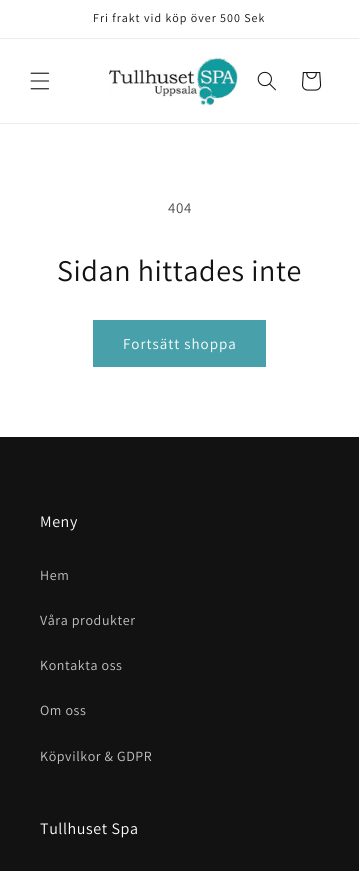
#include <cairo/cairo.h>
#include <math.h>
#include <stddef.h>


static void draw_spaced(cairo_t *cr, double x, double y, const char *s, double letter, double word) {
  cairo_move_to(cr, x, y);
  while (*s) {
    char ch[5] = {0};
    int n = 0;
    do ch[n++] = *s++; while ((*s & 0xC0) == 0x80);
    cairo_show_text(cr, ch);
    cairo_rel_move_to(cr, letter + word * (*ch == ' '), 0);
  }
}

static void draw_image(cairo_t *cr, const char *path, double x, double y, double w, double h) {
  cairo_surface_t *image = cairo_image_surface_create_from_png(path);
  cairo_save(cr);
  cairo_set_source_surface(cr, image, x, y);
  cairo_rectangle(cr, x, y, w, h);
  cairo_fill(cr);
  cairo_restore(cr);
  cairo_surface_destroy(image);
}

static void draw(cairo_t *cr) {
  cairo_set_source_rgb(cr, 1, 1, 1);
  cairo_paint(cr);
  cairo_set_source_rgb(cr, 236 / 255.0, 236 / 255.0, 236 / 255.0);
  cairo_rectangle(cr, 0, 38, 359, 1);
  cairo_fill(cr);
  cairo_rectangle(cr, 0, 123, 359, 1);
  cairo_fill(cr);
  draw_image(cr, "images/1.png", 30, 72, 20, 18);
  draw_image(cr, "images/2.png", 109, 57, 129, 49);
  draw_image(cr, "images/3.png", 257, 71, 19, 20);
  draw_image(cr, "images/4.png", 302, 72, 20, 19);
  cairo_set_source_rgb(cr, 72 / 255.0, 161 / 255.0, 170 / 255.0);
  cairo_rectangle(cr, 93, 320, 173, 47);
  cairo_fill(cr);
  cairo_set_source_rgb(cr, 18 / 255.0, 18 / 255.0, 18 / 255.0);
  cairo_rectangle(cr, 0, 437, 359, 434);
  cairo_fill(cr);
  cairo_select_font_face(cr, "Assistant", CAIRO_FONT_SLANT_NORMAL, CAIRO_FONT_WEIGHT_NORMAL);
  cairo_set_font_size(cr, 12);
  draw_spaced(cr, 93, 22, "Fri frakt vid köp över 500 Sek", 1, 0);
  cairo_set_font_size(cr, 15);
  cairo_set_source_rgb(cr, 77 / 255.0, 77 / 255.0, 77 / 255.0);
  draw_spaced(cr, 168, 213, "404", 0.6, 0);
  cairo_set_font_size(cr, 30);
  cairo_set_source_rgb(cr, 18 / 255.0, 18 / 255.0, 18 / 255.0);
  draw_spaced(cr, 57, 281, "Sidan hittades inte", 0.6, 0);
  cairo_set_font_size(cr, 15);
  cairo_set_source_rgb(cr, 1, 1, 1);
  draw_spaced(cr, 123, 349, "Fortsätt shoppa", 1, 0);
  cairo_set_font_size(cr, 16);
  draw_spaced(cr, 40, 527, "Meny", 0.6, 0);
  cairo_set_font_size(cr, 14);
  cairo_set_source_rgb(cr, 196 / 255.0, 196 / 255.0, 196 / 255.0);
  draw_spaced(cr, 40, 580, "Hem", 0.6, 0);
  draw_spaced(cr, 40, 625, "Våra produkter", 0.6, 0);
  draw_spaced(cr, 40, 670, "Kontakta oss", 0.6, 0);
  draw_spaced(cr, 40, 715, "Om oss", 0.6, 0);
  draw_spaced(cr, 40, 761, "Köpvilkor & GDPR", 0.6, 0);
  cairo_set_font_size(cr, 16);
  cairo_set_source_rgb(cr, 1, 1, 1);
  draw_spaced(cr, 40, 834, "Tullhuset Spa", 0.6, 0);
}

int main(void) {
  cairo_surface_t *surface = cairo_image_surface_create(CAIRO_FORMAT_RGB24, 359, 871);
  cairo_t *cr = cairo_create(surface);
  cairo_font_options_t *options = cairo_font_options_create();
  cairo_font_options_set_hint_metrics(options, CAIRO_HINT_METRICS_OFF);
  cairo_font_options_set_hint_style(options, CAIRO_HINT_STYLE_NONE);
  cairo_set_font_options(cr, options);
  cairo_set_miter_limit(cr, 4);
  draw(cr);
  cairo_surface_write_to_png(surface, "out.png");
  cairo_font_options_destroy(options);
  cairo_destroy(cr);
  cairo_surface_destroy(surface);
  return 0;
}
